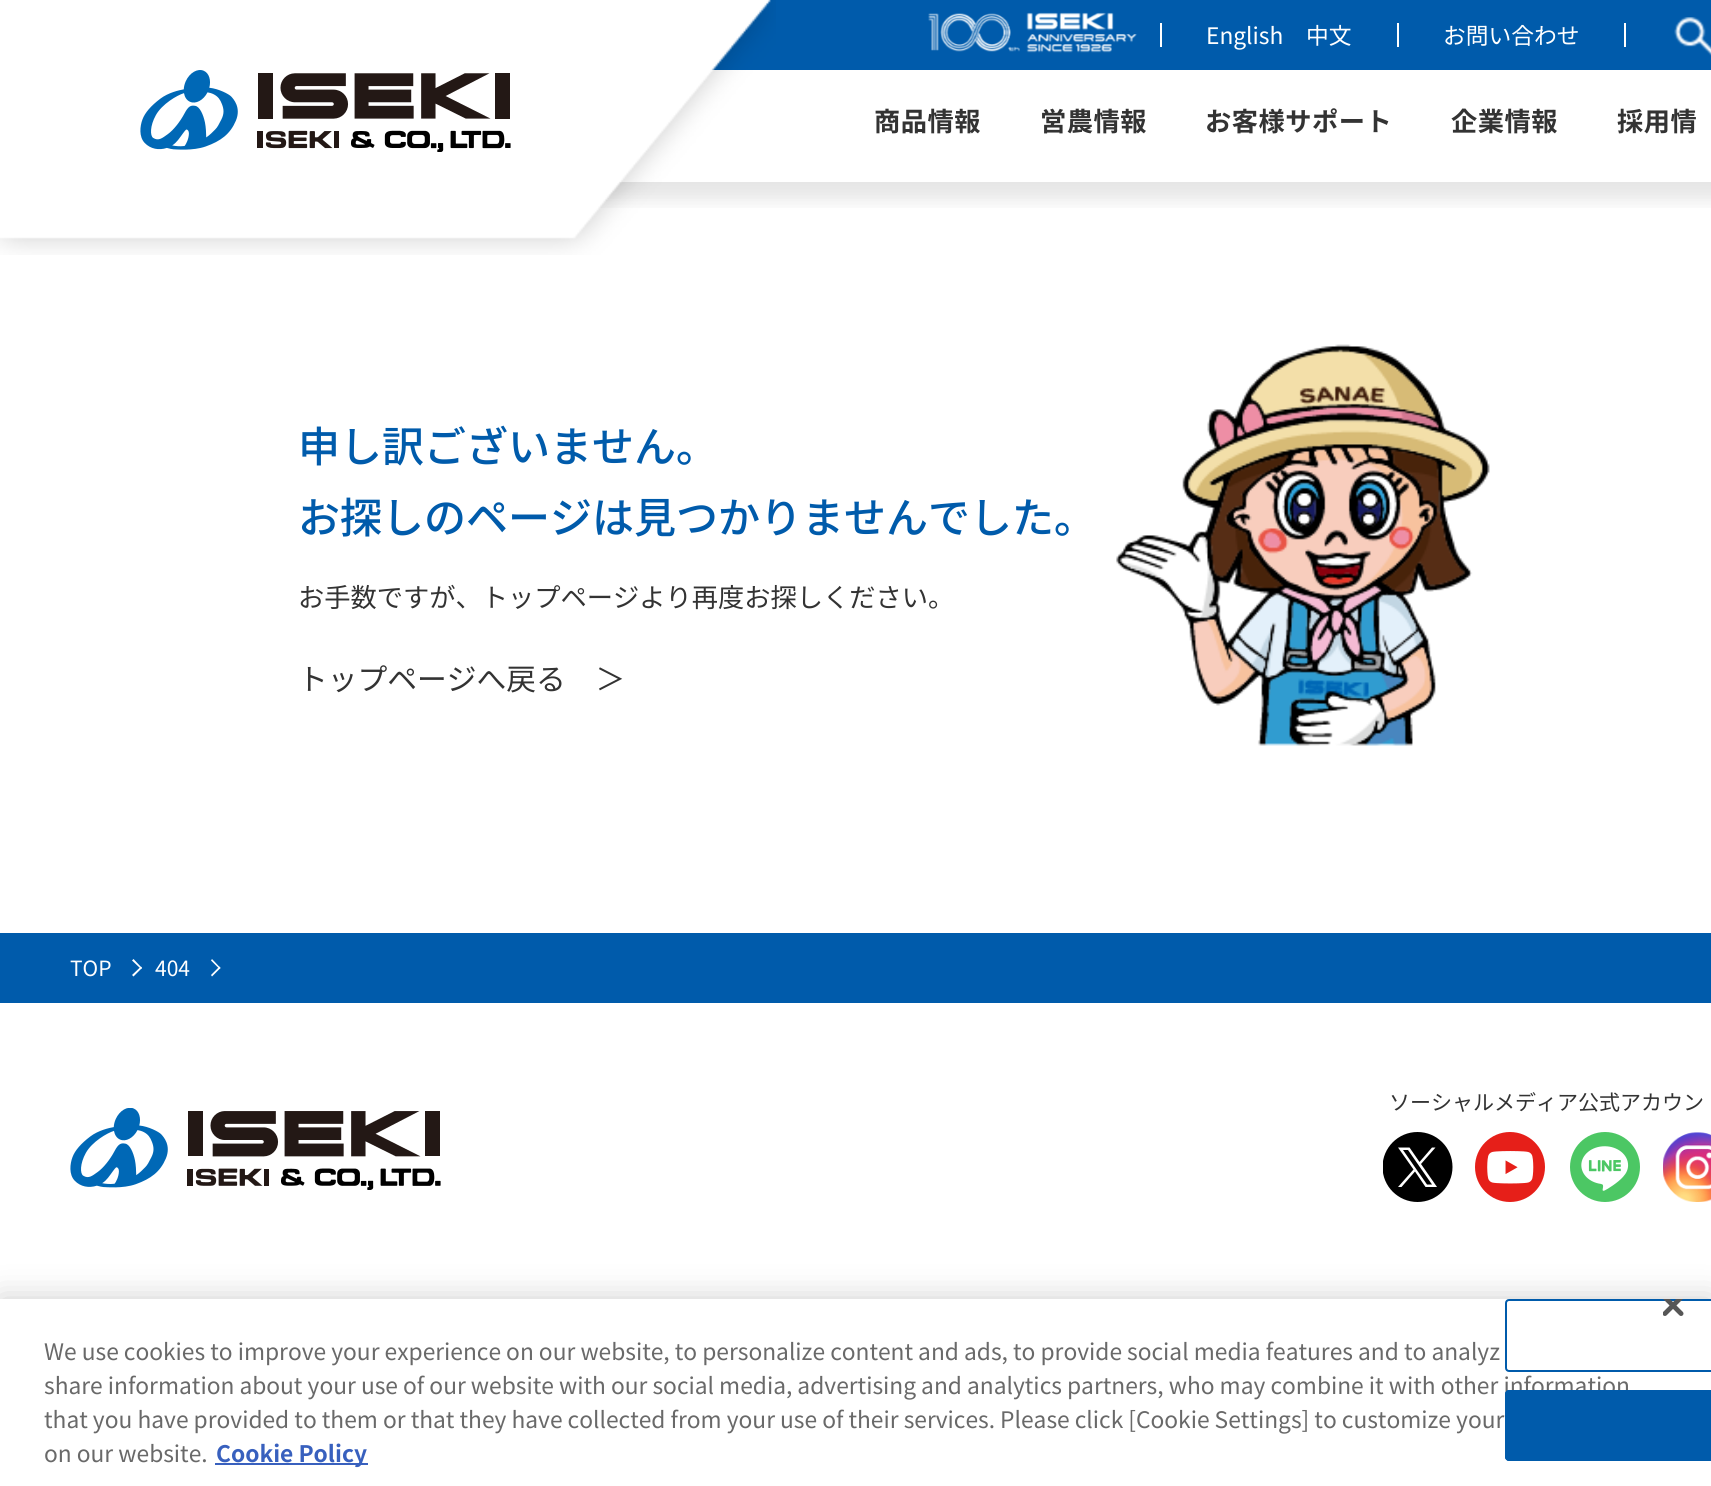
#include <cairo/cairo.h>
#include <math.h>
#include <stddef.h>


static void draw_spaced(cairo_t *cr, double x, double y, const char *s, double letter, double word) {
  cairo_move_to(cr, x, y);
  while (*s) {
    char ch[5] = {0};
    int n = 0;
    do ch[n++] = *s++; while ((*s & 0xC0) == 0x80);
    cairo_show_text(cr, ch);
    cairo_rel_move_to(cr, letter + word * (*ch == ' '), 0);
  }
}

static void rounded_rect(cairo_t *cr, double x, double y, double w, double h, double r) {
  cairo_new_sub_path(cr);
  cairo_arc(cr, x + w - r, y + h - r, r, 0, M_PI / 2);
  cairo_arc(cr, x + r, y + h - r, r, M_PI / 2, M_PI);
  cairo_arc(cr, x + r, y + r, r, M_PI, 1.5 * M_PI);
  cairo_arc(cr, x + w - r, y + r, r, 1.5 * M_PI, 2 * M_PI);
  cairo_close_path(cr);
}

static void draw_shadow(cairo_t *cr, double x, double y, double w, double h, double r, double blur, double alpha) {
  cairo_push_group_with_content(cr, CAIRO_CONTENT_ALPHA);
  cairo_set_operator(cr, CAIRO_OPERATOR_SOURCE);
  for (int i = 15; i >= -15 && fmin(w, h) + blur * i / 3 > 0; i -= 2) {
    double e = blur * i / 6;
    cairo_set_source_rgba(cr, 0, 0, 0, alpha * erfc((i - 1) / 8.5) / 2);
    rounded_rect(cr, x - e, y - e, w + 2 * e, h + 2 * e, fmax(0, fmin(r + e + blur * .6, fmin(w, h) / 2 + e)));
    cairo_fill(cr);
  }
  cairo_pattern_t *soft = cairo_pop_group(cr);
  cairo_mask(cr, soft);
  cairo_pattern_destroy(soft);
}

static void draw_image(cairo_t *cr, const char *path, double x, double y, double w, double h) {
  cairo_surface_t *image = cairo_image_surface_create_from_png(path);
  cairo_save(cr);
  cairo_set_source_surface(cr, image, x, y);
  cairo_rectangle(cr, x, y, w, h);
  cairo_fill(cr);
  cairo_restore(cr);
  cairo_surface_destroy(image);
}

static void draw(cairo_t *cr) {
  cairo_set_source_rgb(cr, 1, 1, 1);
  cairo_paint(cr);
  cairo_set_source_rgb(cr, 0, 91 / 255.0, 171 / 255.0);
  cairo_rectangle(cr, 710, 0, 1001, 70);
  cairo_fill(cr);
  cairo_save(cr);
  cairo_rectangle(cr, 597, 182, 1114, 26);
  cairo_clip(cr);
  cairo_set_source_rgb(cr, 0, 0, 0);
  draw_shadow(cr, 0, 88, 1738, 112, 0, 9, 0.1);
  cairo_restore(cr);
  draw_image(cr, "images/1.png", 0, 0, 776, 255);
  draw_image(cr, "images/2.png", 140, 70, 371, 82);
  draw_image(cr, "images/3.png", 928, 12, 209, 41);
  cairo_set_source_rgb(cr, 1, 1, 1);
  cairo_rectangle(cr, 1160, 23, 2, 24);
  cairo_fill(cr);
  cairo_rectangle(cr, 1397, 23, 2, 24);
  cairo_fill(cr);
  cairo_rectangle(cr, 1624, 23, 2, 24);
  cairo_fill(cr);
  draw_image(cr, "images/4.png", 1674, 17, 37, 39);
  draw_image(cr, "images/5.png", 1116, 344, 374, 402);
  cairo_set_source_rgb(cr, 0, 91 / 255.0, 171 / 255.0);
  cairo_rectangle(cr, 0, 933, 1711, 70);
  cairo_fill(cr);
  cairo_set_source_rgb(cr, 1, 1, 1);
  cairo_new_path(cr);
  cairo_move_to(cr, 133.5, 959);
  cairo_line_to(cr, 142, 968);
  cairo_line_to(cr, 141, 969);
  cairo_line_to(cr, 132, 960.5);
  cairo_close_path(cr);
  cairo_fill(cr);
  cairo_new_path(cr);
  cairo_move_to(cr, 141, 966.5);
  cairo_line_to(cr, 142, 968);
  cairo_line_to(cr, 133.5, 976.5);
  cairo_line_to(cr, 132, 975);
  cairo_close_path(cr);
  cairo_fill(cr);
  cairo_new_path(cr);
  cairo_move_to(cr, 212, 959);
  cairo_line_to(cr, 220.5, 968);
  cairo_line_to(cr, 219.5, 969);
  cairo_line_to(cr, 211, 960.5);
  cairo_close_path(cr);
  cairo_fill(cr);
  cairo_new_path(cr);
  cairo_move_to(cr, 219.5, 966.5);
  cairo_line_to(cr, 220.5, 968);
  cairo_line_to(cr, 212, 976.5);
  cairo_line_to(cr, 211, 975);
  cairo_close_path(cr);
  cairo_fill(cr);
  cairo_save(cr);
  cairo_rectangle(cr, 1383, 1132, 70, 70);
  cairo_clip(cr);
  cairo_set_source_rgb(cr, 0, 0, 0);
  cairo_arc(cr, 1417.5, 1167, 35, 0, 2 * M_PI);
  cairo_fill(cr);
  cairo_restore(cr);
  cairo_new_path(cr);
  cairo_move_to(cr, 1421, 1164);
  cairo_line_to(cr, 1435.5, 1147.5);
  cairo_line_to(cr, 1432, 1147.5);
  cairo_line_to(cr, 1419.5, 1162);
  cairo_line_to(cr, 1409.5, 1147.5);
  cairo_line_to(cr, 1398, 1147.5);
  cairo_line_to(cr, 1413.5, 1169.5);
  cairo_line_to(cr, 1398, 1187);
  cairo_line_to(cr, 1401.5, 1187);
  cairo_line_to(cr, 1415, 1171.5);
  cairo_line_to(cr, 1425.5, 1187);
  cairo_line_to(cr, 1437, 1187);
  cairo_close_path(cr);
  cairo_move_to(cr, 1416.5, 1169.5);
  cairo_line_to(cr, 1403, 1150);
  cairo_line_to(cr, 1408, 1150);
  cairo_line_to(cr, 1432, 1184.5);
  cairo_line_to(cr, 1427, 1184.5);
  cairo_close_path(cr);
  cairo_fill(cr);
  draw_image(cr, "images/6.png", 1475, 1132, 70, 70);
  draw_image(cr, "images/7.png", 1570, 1132, 70, 70);
  draw_image(cr, "images/8.png", 1663, 1132, 48, 70);
  draw_image(cr, "images/9.png", 70, 1108, 371, 82);
  cairo_set_source_rgb(cr, 0, 0, 0);
  draw_shadow(cr, 0, 1299, 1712, 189, 0, 16, 0.2);
  cairo_set_source_rgb(cr, 1, 1, 1);
  cairo_rectangle(cr, 0, 1299, 1711, 187);
  cairo_fill(cr);
  rounded_rect(cr, 1506, 1300, 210, 71, 3);
  cairo_set_source_rgb(cr, 0, 91 / 255.0, 171 / 255.0);
  cairo_stroke(cr);
  draw_image(cr, "images/10.png", 1663, 1299, 21, 17);
  cairo_set_source_rgb(cr, 56 / 255.0, 96 / 255.0, 190 / 255.0);
  cairo_rectangle(cr, 215, 1463, 153, 2);
  cairo_fill(cr);
  cairo_select_font_face(cr, "Noto Sans JP", CAIRO_FONT_SLANT_NORMAL, CAIRO_FONT_WEIGHT_NORMAL);
  cairo_set_font_size(cr, 22.75);
  cairo_set_source_rgb(cr, 1, 1, 1);
  cairo_move_to(cr, 1206, 44);
  cairo_show_text(cr, "English");
  cairo_move_to(cr, 1306, 44);
  cairo_show_text(cr, "中文");
  cairo_move_to(cr, 1443, 44);
  cairo_show_text(cr, "お問い合わせ");
  cairo_select_font_face(cr, "Noto Sans JP", CAIRO_FONT_SLANT_NORMAL, CAIRO_FONT_WEIGHT_BOLD);
  cairo_set_font_size(cr, 26.25);
  cairo_set_source_rgb(cr, 51 / 255.0, 51 / 255.0, 51 / 255.0);
  draw_spaced(cr, 874, 131, "商品情報", 0.5, 0);
  draw_spaced(cr, 1040, 131, "営農情報", 0.5, 0);
  draw_spaced(cr, 1205, 131, "お客様サポート", 0.5, 0);
  draw_spaced(cr, 1451, 131, "企業情報", 0.5, 0);
  draw_spaced(cr, 1617, 131, "採用情", 0.5, 0);
  cairo_select_font_face(cr, "Noto Sans JP Medium", CAIRO_FONT_SLANT_NORMAL, CAIRO_FONT_WEIGHT_NORMAL);
  cairo_set_font_size(cr, 42);
  cairo_set_source_rgb(cr, 0, 91 / 255.0, 171 / 255.0);
  cairo_move_to(cr, 298, 462);
  cairo_show_text(cr, "申し訳ございません。");
  cairo_move_to(cr, 298, 533);
  cairo_show_text(cr, "お探しのページは見つかりませんでした。");
  cairo_select_font_face(cr, "Noto Sans JP", CAIRO_FONT_SLANT_NORMAL, CAIRO_FONT_WEIGHT_NORMAL);
  cairo_set_font_size(cr, 26.25);
  cairo_set_source_rgb(cr, 51 / 255.0, 51 / 255.0, 51 / 255.0);
  cairo_move_to(cr, 298, 607);
  cairo_show_text(cr, "お手数ですが、トップページより再度お探しください。");
  cairo_set_font_size(cr, 29.75);
  cairo_move_to(cr, 298, 690);
  cairo_show_text(cr, "トップページへ戻る　＞");
  cairo_set_font_size(cr, 21);
  cairo_set_source_rgb(cr, 1, 1, 1);
  cairo_move_to(cr, 70, 976);
  cairo_show_text(cr, "TOP");
  cairo_move_to(cr, 155, 976);
  cairo_show_text(cr, "404");
  cairo_set_source_rgb(cr, 51 / 255.0, 51 / 255.0, 51 / 255.0);
  cairo_move_to(cr, 1389, 1110);
  cairo_show_text(cr, "ソーシャルメディア公式アカウン");
  cairo_set_font_size(cr, 22.75);
  cairo_set_source_rgb(cr, 105 / 255.0, 105 / 255.0, 105 / 255.0);
  cairo_move_to(cr, 44, 1360);
  cairo_show_text(cr, "We use cookies to improve your experience on our website, to personalize content and ads, to provide social media features and to analyz");
  cairo_move_to(cr, 44, 1394);
  cairo_show_text(cr, "share information about your use of our website with our social media, advertising and analytics partners, who may combine it with other information");
  cairo_set_source_rgb(cr, 0, 91 / 255.0, 171 / 255.0);
  cairo_new_path(cr);
  cairo_move_to(cr, 1509, 1390);
  cairo_line_to(cr, 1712, 1390);
  cairo_line_to(cr, 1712, 1461);
  cairo_line_to(cr, 1509, 1461);
  cairo_curve_to(cr, 1507, 1461, 1505, 1459, 1505, 1457);
  cairo_line_to(cr, 1505, 1394);
  cairo_curve_to(cr, 1505, 1392, 1507, 1390, 1509, 1390);
  cairo_close_path(cr);
  cairo_fill(cr);
  rounded_rect(cr, 1506, 1391, 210, 69, 3);
  cairo_stroke(cr);
  cairo_set_source_rgb(cr, 105 / 255.0, 105 / 255.0, 105 / 255.0);
  cairo_move_to(cr, 44, 1428);
  cairo_show_text(cr, "that you have provided to them or that they have collected from your use of their services. Please click [Cookie Settings] to customize your");
  cairo_move_to(cr, 44, 1462);
  cairo_show_text(cr, "on our website.");
  cairo_select_font_face(cr, "Noto Sans JP", CAIRO_FONT_SLANT_NORMAL, CAIRO_FONT_WEIGHT_BOLD);
  cairo_set_source_rgb(cr, 56 / 255.0, 96 / 255.0, 190 / 255.0);
  cairo_move_to(cr, 216, 1462);
  cairo_show_text(cr, "Cookie Policy");
}

int main(void) {
  cairo_surface_t *surface = cairo_image_surface_create(CAIRO_FORMAT_RGB24, 1711, 1486);
  cairo_t *cr = cairo_create(surface);
  cairo_font_options_t *options = cairo_font_options_create();
  cairo_font_options_set_hint_metrics(options, CAIRO_HINT_METRICS_OFF);
  cairo_font_options_set_hint_style(options, CAIRO_HINT_STYLE_NONE);
  cairo_set_font_options(cr, options);
  cairo_set_miter_limit(cr, 4);
  draw(cr);
  cairo_surface_write_to_png(surface, "out.png");
  cairo_font_options_destroy(options);
  cairo_destroy(cr);
  cairo_surface_destroy(surface);
  return 0;
}
